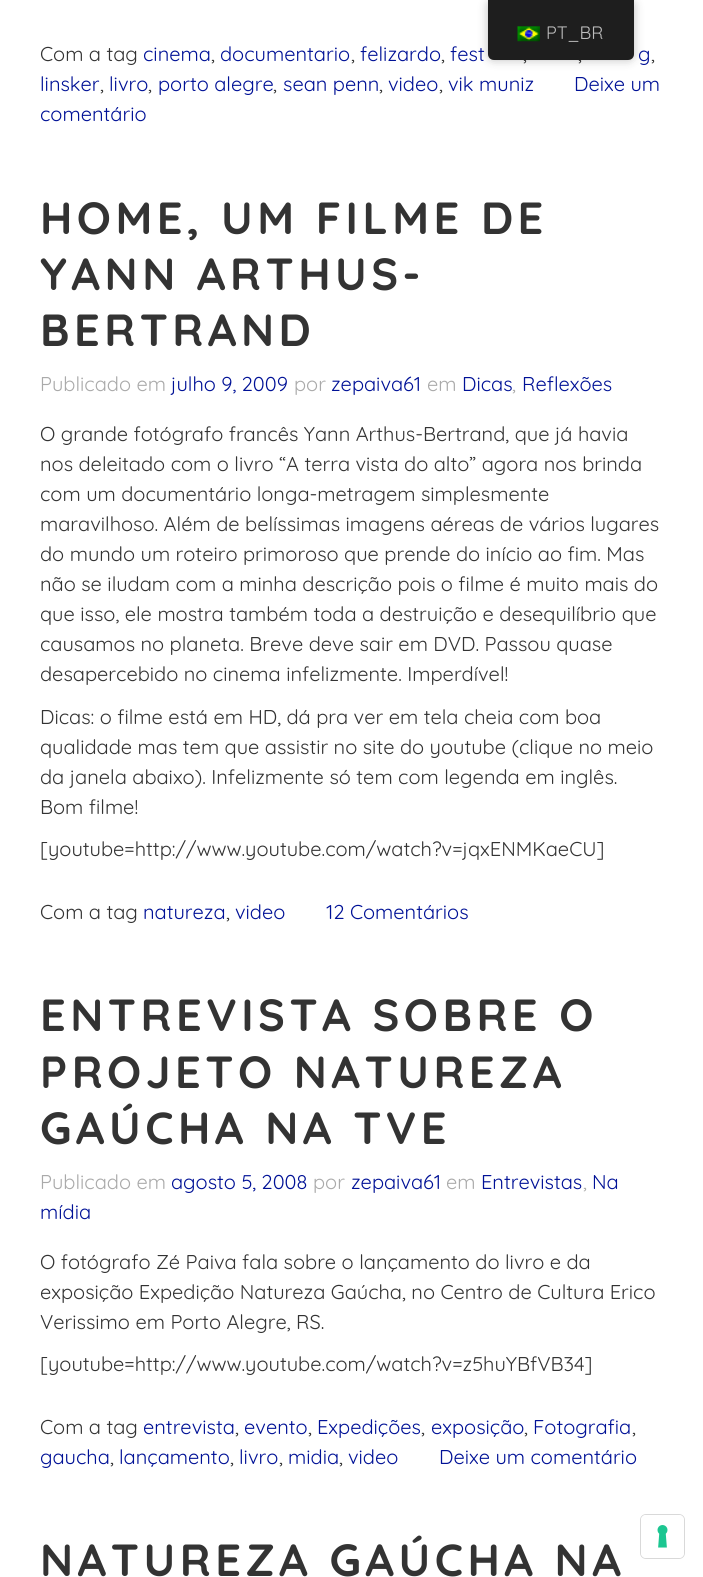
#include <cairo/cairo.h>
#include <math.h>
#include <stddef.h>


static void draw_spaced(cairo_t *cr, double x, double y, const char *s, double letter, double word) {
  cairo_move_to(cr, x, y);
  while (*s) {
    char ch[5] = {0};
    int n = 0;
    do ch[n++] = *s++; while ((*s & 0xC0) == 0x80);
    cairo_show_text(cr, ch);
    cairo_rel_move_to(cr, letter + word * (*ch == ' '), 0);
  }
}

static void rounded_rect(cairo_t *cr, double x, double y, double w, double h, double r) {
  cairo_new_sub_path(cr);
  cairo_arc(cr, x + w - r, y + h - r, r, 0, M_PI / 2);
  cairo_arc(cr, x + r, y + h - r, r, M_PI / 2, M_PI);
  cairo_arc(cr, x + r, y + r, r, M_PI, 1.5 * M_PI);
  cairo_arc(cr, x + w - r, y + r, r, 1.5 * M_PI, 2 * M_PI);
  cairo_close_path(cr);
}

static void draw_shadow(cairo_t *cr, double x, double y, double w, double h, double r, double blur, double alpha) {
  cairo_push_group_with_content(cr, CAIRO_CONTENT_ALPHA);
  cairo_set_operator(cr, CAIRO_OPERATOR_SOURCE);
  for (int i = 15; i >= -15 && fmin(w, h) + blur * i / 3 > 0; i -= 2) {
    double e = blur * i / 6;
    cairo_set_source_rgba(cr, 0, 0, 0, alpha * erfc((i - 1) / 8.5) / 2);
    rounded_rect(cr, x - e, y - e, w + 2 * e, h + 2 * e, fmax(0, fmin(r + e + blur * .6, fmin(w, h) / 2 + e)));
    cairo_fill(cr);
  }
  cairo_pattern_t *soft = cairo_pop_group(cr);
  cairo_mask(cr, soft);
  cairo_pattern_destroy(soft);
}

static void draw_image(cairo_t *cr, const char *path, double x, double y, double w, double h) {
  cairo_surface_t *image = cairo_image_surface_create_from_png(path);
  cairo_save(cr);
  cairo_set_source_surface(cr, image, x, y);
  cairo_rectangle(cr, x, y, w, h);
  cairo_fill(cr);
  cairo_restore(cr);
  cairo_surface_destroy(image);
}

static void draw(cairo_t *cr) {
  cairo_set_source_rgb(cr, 1, 1, 1);
  cairo_paint(cr);
  cairo_set_source_rgb(cr, 0, 0, 0);
  draw_shadow(cr, 488, 0, 146, 60, 6, 5, 0.25);
  rounded_rect(cr, 640.5, 1514.5, 44, 44, 5.5);
  cairo_set_source_rgb(cr, 217 / 255.0, 217 / 255.0, 217 / 255.0);
  cairo_set_line_width(cr, 1);
  cairo_stroke(cr);
  cairo_set_source_rgb(cr, 1, 1, 1);
  rounded_rect(cr, 641, 1515, 43, 43, 5);
  cairo_fill(cr);
  draw_image(cr, "images/2.png", 657, 1525, 11, 23);
  cairo_select_font_face(cr, "Quicksand", CAIRO_FONT_SLANT_NORMAL, CAIRO_FONT_WEIGHT_NORMAL);
  cairo_set_font_size(cr, 20);
  cairo_set_source_rgb(cr, 51 / 255.0, 51 / 255.0, 51 / 255.0);
  cairo_move_to(cr, 40, 61);
  cairo_show_text(cr, "Com a tag");
  cairo_set_source_rgb(cr, 0, 17 / 255.0, 150 / 255.0);
  cairo_move_to(cr, 143, 61);
  cairo_show_text(cr, "cinema");
  cairo_set_source_rgb(cr, 51 / 255.0, 51 / 255.0, 51 / 255.0);
  cairo_move_to(cr, 211, 61);
  cairo_show_text(cr, ",");
  cairo_set_source_rgb(cr, 0, 17 / 255.0, 150 / 255.0);
  cairo_move_to(cr, 220, 61);
  cairo_show_text(cr, "documentario");
  cairo_set_source_rgb(cr, 51 / 255.0, 51 / 255.0, 51 / 255.0);
  cairo_move_to(cr, 351, 61);
  cairo_show_text(cr, ",");
  cairo_set_source_rgb(cr, 0, 17 / 255.0, 150 / 255.0);
  cairo_move_to(cr, 360, 61);
  cairo_show_text(cr, "felizardo");
  cairo_set_source_rgb(cr, 51 / 255.0, 51 / 255.0, 51 / 255.0);
  cairo_move_to(cr, 441, 61);
  cairo_show_text(cr, ",");
  cairo_set_source_rgb(cr, 0, 17 / 255.0, 150 / 255.0);
  cairo_move_to(cr, 450, 61);
  cairo_show_text(cr, "fest");
  cairo_set_source_rgb(cr, 51 / 255.0, 51 / 255.0, 51 / 255.0);
  cairo_move_to(cr, 523, 61);
  cairo_show_text(cr, ",");
  cairo_move_to(cr, 578, 61);
  cairo_show_text(cr, ",");
  cairo_set_source_rgb(cr, 30 / 255.0, 30 / 255.0, 30 / 255.0);
  cairo_new_path(cr);
  cairo_move_to(cr, 488, 0);
  cairo_line_to(cr, 634, 0);
  cairo_line_to(cr, 634, 54);
  cairo_curve_to(cr, 634, 57.5, 631.5, 60, 628, 60);
  cairo_line_to(cr, 494, 60);
  cairo_curve_to(cr, 490.5, 60, 488, 57.5, 488, 54);
  cairo_close_path(cr);
  cairo_fill(cr);
  cairo_set_font_size(cr, 18);
  cairo_set_source_rgb(cr, 189 / 255.0, 189 / 255.0, 189 / 255.0);
  cairo_move_to(cr, 546, 39);
  cairo_show_text(cr, "PT_BR");
  draw_image(cr, "images/1.png", 517, 26, 23, 16);
  cairo_set_font_size(cr, 20);
  cairo_set_source_rgb(cr, 0, 17 / 255.0, 150 / 255.0);
  cairo_move_to(cr, 638, 61);
  cairo_show_text(cr, "g");
  cairo_set_source_rgb(cr, 51 / 255.0, 51 / 255.0, 51 / 255.0);
  cairo_move_to(cr, 651, 61);
  cairo_show_text(cr, ",");
  cairo_set_source_rgb(cr, 0, 17 / 255.0, 150 / 255.0);
  cairo_move_to(cr, 40, 91);
  cairo_show_text(cr, "linsker");
  cairo_set_source_rgb(cr, 51 / 255.0, 51 / 255.0, 51 / 255.0);
  cairo_move_to(cr, 100, 91);
  cairo_show_text(cr, ",");
  cairo_set_source_rgb(cr, 0, 17 / 255.0, 150 / 255.0);
  cairo_move_to(cr, 109, 91);
  cairo_show_text(cr, "livro");
  cairo_set_source_rgb(cr, 51 / 255.0, 51 / 255.0, 51 / 255.0);
  cairo_move_to(cr, 148, 91);
  cairo_show_text(cr, ",");
  cairo_set_source_rgb(cr, 0, 17 / 255.0, 150 / 255.0);
  cairo_move_to(cr, 158, 91);
  cairo_show_text(cr, "porto alegre");
  cairo_set_source_rgb(cr, 51 / 255.0, 51 / 255.0, 51 / 255.0);
  cairo_move_to(cr, 273, 91);
  cairo_show_text(cr, ",");
  cairo_set_source_rgb(cr, 0, 17 / 255.0, 150 / 255.0);
  cairo_move_to(cr, 283, 91);
  cairo_show_text(cr, "sean penn");
  cairo_set_source_rgb(cr, 51 / 255.0, 51 / 255.0, 51 / 255.0);
  cairo_move_to(cr, 379, 91);
  cairo_show_text(cr, ",");
  cairo_set_source_rgb(cr, 0, 17 / 255.0, 150 / 255.0);
  cairo_move_to(cr, 388, 91);
  cairo_show_text(cr, "video");
  cairo_set_source_rgb(cr, 51 / 255.0, 51 / 255.0, 51 / 255.0);
  cairo_move_to(cr, 439, 91);
  cairo_show_text(cr, ",");
  cairo_set_source_rgb(cr, 0, 17 / 255.0, 150 / 255.0);
  cairo_move_to(cr, 448, 91);
  cairo_show_text(cr, "vik muniz");
  cairo_move_to(cr, 574, 91);
  cairo_show_text(cr, "Deixe um");
  cairo_move_to(cr, 40, 121);
  cairo_show_text(cr, "comentário");
  cairo_select_font_face(cr, "Quicksand", CAIRO_FONT_SLANT_NORMAL, CAIRO_FONT_WEIGHT_BOLD);
  cairo_set_font_size(cr, 45);
  cairo_set_source_rgb(cr, 51 / 255.0, 51 / 255.0, 51 / 255.0);
  draw_spaced(cr, 40, 234, "HOME, UM FILME DE", 4.5, 0);
  draw_spaced(cr, 40, 290, "YANN ARTHUS-", 4.5, 0);
  draw_spaced(cr, 40, 346, "BERTRAND", 4.5, 0);
  cairo_select_font_face(cr, "Quicksand", CAIRO_FONT_SLANT_NORMAL, CAIRO_FONT_WEIGHT_NORMAL);
  cairo_set_font_size(cr, 20);
  cairo_set_source_rgb(cr, 170 / 255.0, 170 / 255.0, 170 / 255.0);
  cairo_move_to(cr, 40, 391);
  cairo_show_text(cr, "Publicado em");
  cairo_set_source_rgb(cr, 0, 17 / 255.0, 150 / 255.0);
  cairo_move_to(cr, 171, 391);
  cairo_show_text(cr, "julho 9, 2009");
  cairo_set_source_rgb(cr, 170 / 255.0, 170 / 255.0, 170 / 255.0);
  cairo_move_to(cr, 294, 391);
  cairo_show_text(cr, "por");
  cairo_set_source_rgb(cr, 0, 17 / 255.0, 150 / 255.0);
  cairo_move_to(cr, 331, 391);
  cairo_show_text(cr, "zepaiva61");
  cairo_set_source_rgb(cr, 170 / 255.0, 170 / 255.0, 170 / 255.0);
  cairo_move_to(cr, 427, 391);
  cairo_show_text(cr, "em");
  cairo_set_source_rgb(cr, 0, 17 / 255.0, 150 / 255.0);
  cairo_move_to(cr, 462, 391);
  cairo_show_text(cr, "Dicas");
  cairo_set_source_rgb(cr, 170 / 255.0, 170 / 255.0, 170 / 255.0);
  cairo_move_to(cr, 512, 391);
  cairo_show_text(cr, ",");
  cairo_set_source_rgb(cr, 0, 17 / 255.0, 150 / 255.0);
  cairo_move_to(cr, 522, 391);
  cairo_show_text(cr, "Reflexões");
  cairo_set_source_rgb(cr, 51 / 255.0, 51 / 255.0, 51 / 255.0);
  cairo_move_to(cr, 40, 441);
  cairo_show_text(cr, "O grande fotógrafo francês Yann Arthus-Bertrand, que já havia");
  cairo_move_to(cr, 40, 471);
  cairo_show_text(cr, "nos deleitado com o livro “A terra vista do alto” agora nos brinda");
  cairo_move_to(cr, 40, 501);
  cairo_show_text(cr, "com um documentário longa-metragem simplesmente");
  cairo_move_to(cr, 40, 531);
  cairo_show_text(cr, "maravilhoso. Além de belíssimas imagens aéreas de vários lugares");
  cairo_move_to(cr, 40, 561);
  cairo_show_text(cr, "do mundo um roteiro primoroso que prende do início ao fim. Mas");
  cairo_move_to(cr, 40, 591);
  cairo_show_text(cr, "não se iludam com a minha descrição pois o filme é muito mais do");
  cairo_move_to(cr, 40, 621);
  cairo_show_text(cr, "que isso, ele mostra também toda a destruição e desequilíbrio que");
  cairo_move_to(cr, 40, 651);
  cairo_show_text(cr, "causamos no planeta. Breve deve sair em DVD. Passou quase");
  cairo_move_to(cr, 40, 681);
  cairo_show_text(cr, "desapercebido no cinema infelizmente. Imperdível!");
  cairo_move_to(cr, 40, 724);
  cairo_show_text(cr, "Dicas: o filme está em HD, dá pra ver em tela cheia com boa");
  cairo_move_to(cr, 40, 754);
  cairo_show_text(cr, "qualidade mas tem que assistir no site do youtube (clique no meio");
  cairo_move_to(cr, 40, 784);
  cairo_show_text(cr, "da janela abaixo). Infelizmente só tem com legenda em inglês.");
  cairo_move_to(cr, 40, 814);
  cairo_show_text(cr, "Bom filme!");
  cairo_move_to(cr, 40, 856);
  cairo_show_text(cr, "[youtube=http://www.youtube.com/watch?v=jqxENMKaeCU]");
  cairo_move_to(cr, 40, 919);
  cairo_show_text(cr, "Com a tag");
  cairo_set_source_rgb(cr, 0, 17 / 255.0, 150 / 255.0);
  cairo_move_to(cr, 143, 919);
  cairo_show_text(cr, "natureza");
  cairo_set_source_rgb(cr, 51 / 255.0, 51 / 255.0, 51 / 255.0);
  cairo_move_to(cr, 226, 919);
  cairo_show_text(cr, ",");
  cairo_set_source_rgb(cr, 0, 17 / 255.0, 150 / 255.0);
  cairo_move_to(cr, 235, 919);
  cairo_show_text(cr, "video");
  cairo_move_to(cr, 326, 919);
  cairo_show_text(cr, "12 Comentários");
  cairo_select_font_face(cr, "Quicksand", CAIRO_FONT_SLANT_NORMAL, CAIRO_FONT_WEIGHT_BOLD);
  cairo_set_font_size(cr, 45);
  cairo_set_source_rgb(cr, 51 / 255.0, 51 / 255.0, 51 / 255.0);
  draw_spaced(cr, 40, 1031, "ENTREVISTA SOBRE O", 4.5, 0);
  draw_spaced(cr, 40, 1088, "PROJETO NATUREZA", 4.5, 0);
  draw_spaced(cr, 40, 1144, "GAÚCHA NA TVE", 4.5, 0);
  cairo_select_font_face(cr, "Quicksand", CAIRO_FONT_SLANT_NORMAL, CAIRO_FONT_WEIGHT_NORMAL);
  cairo_set_font_size(cr, 20);
  cairo_set_source_rgb(cr, 170 / 255.0, 170 / 255.0, 170 / 255.0);
  cairo_move_to(cr, 40, 1189);
  cairo_show_text(cr, "Publicado em");
  cairo_set_source_rgb(cr, 0, 17 / 255.0, 150 / 255.0);
  cairo_move_to(cr, 171, 1189);
  cairo_show_text(cr, "agosto 5, 2008");
  cairo_set_source_rgb(cr, 170 / 255.0, 170 / 255.0, 170 / 255.0);
  cairo_move_to(cr, 313, 1189);
  cairo_show_text(cr, "por");
  cairo_set_source_rgb(cr, 0, 17 / 255.0, 150 / 255.0);
  cairo_move_to(cr, 351, 1189);
  cairo_show_text(cr, "zepaiva61");
  cairo_set_source_rgb(cr, 170 / 255.0, 170 / 255.0, 170 / 255.0);
  cairo_move_to(cr, 446, 1189);
  cairo_show_text(cr, "em");
  cairo_set_source_rgb(cr, 0, 17 / 255.0, 150 / 255.0);
  cairo_move_to(cr, 481, 1189);
  cairo_show_text(cr, "Entrevistas");
  cairo_set_source_rgb(cr, 170 / 255.0, 170 / 255.0, 170 / 255.0);
  cairo_move_to(cr, 583, 1189);
  cairo_show_text(cr, ",");
  cairo_set_source_rgb(cr, 0, 17 / 255.0, 150 / 255.0);
  cairo_move_to(cr, 592, 1189);
  cairo_show_text(cr, "Na");
  cairo_move_to(cr, 40, 1219);
  cairo_show_text(cr, "mídia");
  cairo_set_source_rgb(cr, 51 / 255.0, 51 / 255.0, 51 / 255.0);
  cairo_move_to(cr, 40, 1269);
  cairo_show_text(cr, "O fotógrafo Zé Paiva fala sobre o lançamento do livro e da");
  cairo_move_to(cr, 40, 1299);
  cairo_show_text(cr, "exposição Expedição Natureza Gaúcha, no Centro de Cultura Erico");
  cairo_move_to(cr, 40, 1329);
  cairo_show_text(cr, "Verissimo em Porto Alegre, RS.");
  cairo_move_to(cr, 40, 1371);
  cairo_show_text(cr, "[youtube=http://www.youtube.com/watch?v=z5huYBfVB34]");
  cairo_move_to(cr, 40, 1434);
  cairo_show_text(cr, "Com a tag");
  cairo_set_source_rgb(cr, 0, 17 / 255.0, 150 / 255.0);
  cairo_move_to(cr, 143, 1434);
  cairo_show_text(cr, "entrevista");
  cairo_set_source_rgb(cr, 51 / 255.0, 51 / 255.0, 51 / 255.0);
  cairo_move_to(cr, 235, 1434);
  cairo_show_text(cr, ",");
  cairo_set_source_rgb(cr, 0, 17 / 255.0, 150 / 255.0);
  cairo_move_to(cr, 244, 1434);
  cairo_show_text(cr, "evento");
  cairo_set_source_rgb(cr, 51 / 255.0, 51 / 255.0, 51 / 255.0);
  cairo_move_to(cr, 308, 1434);
  cairo_show_text(cr, ",");
  cairo_set_source_rgb(cr, 0, 17 / 255.0, 150 / 255.0);
  cairo_move_to(cr, 317, 1434);
  cairo_show_text(cr, "Expedições");
  cairo_set_source_rgb(cr, 51 / 255.0, 51 / 255.0, 51 / 255.0);
  cairo_move_to(cr, 421, 1434);
  cairo_show_text(cr, ",");
  cairo_set_source_rgb(cr, 0, 17 / 255.0, 150 / 255.0);
  cairo_move_to(cr, 431, 1434);
  cairo_show_text(cr, "exposição");
  cairo_set_source_rgb(cr, 51 / 255.0, 51 / 255.0, 51 / 255.0);
  cairo_move_to(cr, 524, 1434);
  cairo_show_text(cr, ",");
  cairo_set_source_rgb(cr, 0, 17 / 255.0, 150 / 255.0);
  cairo_move_to(cr, 533, 1434);
  cairo_show_text(cr, "Fotografia");
  cairo_set_source_rgb(cr, 51 / 255.0, 51 / 255.0, 51 / 255.0);
  cairo_move_to(cr, 632, 1434);
  cairo_show_text(cr, ",");
  cairo_set_source_rgb(cr, 0, 17 / 255.0, 150 / 255.0);
  cairo_move_to(cr, 40, 1464);
  cairo_show_text(cr, "gaucha");
  cairo_set_source_rgb(cr, 51 / 255.0, 51 / 255.0, 51 / 255.0);
  cairo_move_to(cr, 110, 1464);
  cairo_show_text(cr, ",");
  cairo_set_source_rgb(cr, 0, 17 / 255.0, 150 / 255.0);
  cairo_move_to(cr, 119, 1464);
  cairo_show_text(cr, "lançamento");
  cairo_set_source_rgb(cr, 51 / 255.0, 51 / 255.0, 51 / 255.0);
  cairo_move_to(cr, 230, 1464);
  cairo_show_text(cr, ",");
  cairo_set_source_rgb(cr, 0, 17 / 255.0, 150 / 255.0);
  cairo_move_to(cr, 239, 1464);
  cairo_show_text(cr, "livro");
  cairo_set_source_rgb(cr, 51 / 255.0, 51 / 255.0, 51 / 255.0);
  cairo_move_to(cr, 279, 1464);
  cairo_show_text(cr, ",");
  cairo_set_source_rgb(cr, 0, 17 / 255.0, 150 / 255.0);
  cairo_move_to(cr, 288, 1464);
  cairo_show_text(cr, "midia");
  cairo_set_source_rgb(cr, 51 / 255.0, 51 / 255.0, 51 / 255.0);
  cairo_move_to(cr, 339, 1464);
  cairo_show_text(cr, ",");
  cairo_set_source_rgb(cr, 0, 17 / 255.0, 150 / 255.0);
  cairo_move_to(cr, 348, 1464);
  cairo_show_text(cr, "video");
  cairo_move_to(cr, 439, 1464);
  cairo_show_text(cr, "Deixe um comentário");
  cairo_select_font_face(cr, "Quicksand", CAIRO_FONT_SLANT_NORMAL, CAIRO_FONT_WEIGHT_BOLD);
  cairo_set_font_size(cr, 45);
  cairo_set_source_rgb(cr, 51 / 255.0, 51 / 255.0, 51 / 255.0);
  draw_spaced(cr, 40, 1576, "NATUREZA GAÚCHA NA", 4.5, 0);
}

int main(void) {
  cairo_surface_t *surface = cairo_image_surface_create(CAIRO_FORMAT_RGB24, 703, 1577);
  cairo_t *cr = cairo_create(surface);
  cairo_font_options_t *options = cairo_font_options_create();
  cairo_font_options_set_hint_metrics(options, CAIRO_HINT_METRICS_OFF);
  cairo_font_options_set_hint_style(options, CAIRO_HINT_STYLE_NONE);
  cairo_set_font_options(cr, options);
  cairo_set_miter_limit(cr, 4);
  draw(cr);
  cairo_surface_write_to_png(surface, "out.png");
  cairo_font_options_destroy(options);
  cairo_destroy(cr);
  cairo_surface_destroy(surface);
  return 0;
}
